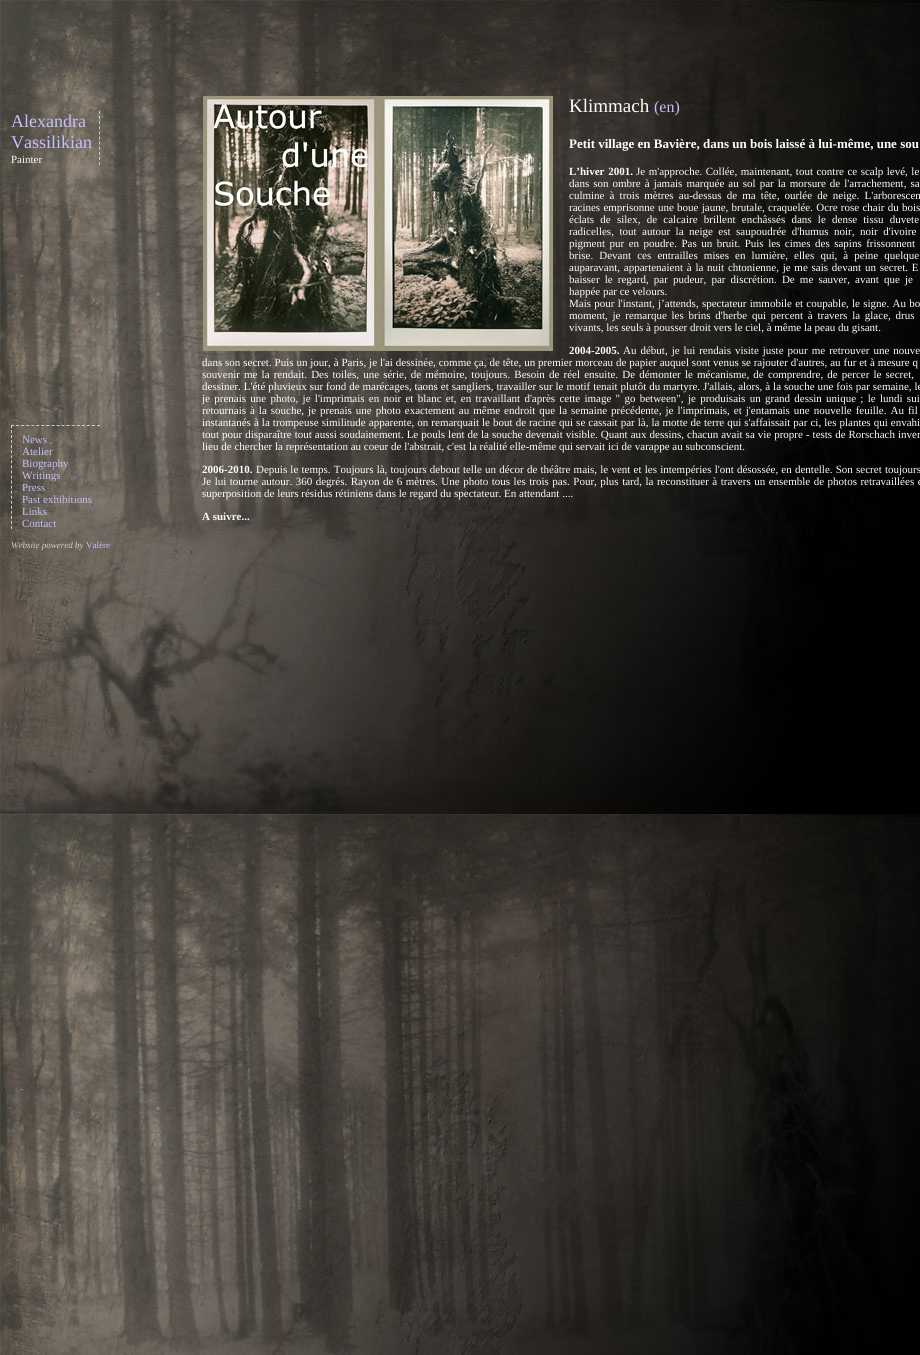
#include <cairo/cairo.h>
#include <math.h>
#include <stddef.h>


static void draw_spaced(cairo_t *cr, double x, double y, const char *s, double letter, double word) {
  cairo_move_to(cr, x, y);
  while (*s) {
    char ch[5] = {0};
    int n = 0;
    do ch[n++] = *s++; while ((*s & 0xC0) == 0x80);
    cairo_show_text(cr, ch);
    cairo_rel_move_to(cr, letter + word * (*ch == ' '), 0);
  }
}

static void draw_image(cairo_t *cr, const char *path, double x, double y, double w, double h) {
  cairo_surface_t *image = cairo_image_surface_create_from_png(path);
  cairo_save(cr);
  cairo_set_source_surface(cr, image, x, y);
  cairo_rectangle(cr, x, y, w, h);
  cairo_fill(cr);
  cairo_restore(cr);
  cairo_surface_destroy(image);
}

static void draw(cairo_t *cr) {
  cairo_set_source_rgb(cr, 1, 1, 1);
  cairo_paint(cr);
  draw_image(cr, "images/1.png", 0, 0, 920, 1355);
  cairo_new_path(cr);
  cairo_move_to(cr, 99.5, 111);
  cairo_line_to(cr, 99.5, 165);
  cairo_set_source_rgb(cr, 204 / 255.0, 204 / 255.0, 204 / 255.0);
  cairo_set_line_width(cr, 1);
  cairo_set_dash(cr, (double[]){3, 2.1}, 2, 0);
  cairo_stroke(cr);
  cairo_new_path(cr);
  cairo_move_to(cr, 11, 425.5);
  cairo_line_to(cr, 100, 425.5);
  cairo_set_dash(cr, (double[]){3, 2.06}, 2, 0);
  cairo_stroke(cr);
  cairo_new_path(cr);
  cairo_move_to(cr, 11.5, 425);
  cairo_line_to(cr, 11.5, 529);
  cairo_set_dash(cr, (double[]){3, 2.05}, 2, 0);
  cairo_stroke(cr);
  draw_image(cr, "images/2.png", 203, 96, 350, 255);
  cairo_select_font_face(cr, "Liberation Serif", CAIRO_FONT_SLANT_NORMAL, CAIRO_FONT_WEIGHT_NORMAL);
  cairo_set_font_size(cr, 18);
  cairo_set_source_rgb(cr, 196 / 255.0, 191 / 255.0, 253 / 255.0);
  cairo_move_to(cr, 11, 127);
  cairo_show_text(cr, "Alexandra");
  cairo_move_to(cr, 11, 148);
  cairo_show_text(cr, "Vassilikian");
  cairo_set_font_size(cr, 11);
  cairo_set_source_rgb(cr, 252 / 255.0, 252 / 255.0, 252 / 255.0);
  cairo_move_to(cr, 11, 163);
  cairo_show_text(cr, "Painter");
  cairo_set_source_rgb(cr, 196 / 255.0, 191 / 255.0, 253 / 255.0);
  cairo_move_to(cr, 22, 443);
  cairo_show_text(cr, "News");
  cairo_move_to(cr, 22, 455);
  cairo_show_text(cr, "Atelier");
  cairo_move_to(cr, 22, 467);
  cairo_show_text(cr, "Biography");
  cairo_move_to(cr, 22, 479);
  cairo_show_text(cr, "Writings");
  cairo_move_to(cr, 22, 491);
  cairo_show_text(cr, "Press");
  cairo_move_to(cr, 22, 503);
  cairo_show_text(cr, "Past exhibitions");
  cairo_move_to(cr, 22, 515);
  cairo_show_text(cr, "Links");
  cairo_move_to(cr, 22, 527);
  cairo_show_text(cr, "Contact");
  cairo_select_font_face(cr, "Liberation Serif", CAIRO_FONT_SLANT_ITALIC, CAIRO_FONT_WEIGHT_NORMAL);
  cairo_set_font_size(cr, 9);
  cairo_set_source_rgb(cr, 204 / 255.0, 204 / 255.0, 204 / 255.0);
  cairo_move_to(cr, 11, 548);
  cairo_show_text(cr, "Website powered by");
  cairo_select_font_face(cr, "Liberation Serif", CAIRO_FONT_SLANT_NORMAL, CAIRO_FONT_WEIGHT_NORMAL);
  cairo_set_source_rgb(cr, 196 / 255.0, 191 / 255.0, 253 / 255.0);
  cairo_move_to(cr, 86, 548);
  cairo_show_text(cr, "Valère");
  cairo_set_font_size(cr, 19);
  cairo_set_source_rgb(cr, 252 / 255.0, 252 / 255.0, 252 / 255.0);
  cairo_move_to(cr, 569, 112);
  cairo_show_text(cr, "Klimmach");
  cairo_set_font_size(cr, 16);
  cairo_set_source_rgb(cr, 196 / 255.0, 191 / 255.0, 253 / 255.0);
  cairo_move_to(cr, 654, 112);
  cairo_show_text(cr, "(en)");
  cairo_select_font_face(cr, "Liberation Serif", CAIRO_FONT_SLANT_NORMAL, CAIRO_FONT_WEIGHT_BOLD);
  cairo_set_font_size(cr, 13);
  cairo_set_source_rgb(cr, 252 / 255.0, 252 / 255.0, 252 / 255.0);
  cairo_move_to(cr, 569, 148);
  cairo_show_text(cr, "Petit village en Bavière, dans un bois laissé à lui-même, une sou");
  cairo_set_font_size(cr, 11);
  draw_spaced(cr, 569, 175, "L’hiver 2001.", 0, 1);
  cairo_select_font_face(cr, "Liberation Serif", CAIRO_FONT_SLANT_NORMAL, CAIRO_FONT_WEIGHT_NORMAL);
  draw_spaced(cr, 636, 175, "Je m'approche. Collée, maintenant, tout contre ce scalp levé, le", 0, 0.75);
  draw_spaced(cr, 569, 187, "dans son ombre à jamais marquée au sol par la morsure de l'arrachement, sa", 0, 1.3);
  draw_spaced(cr, 569, 199, "culmine à trois mètres au-dessus de ma tête, ourlée de neige. L'arborescen", 0, 2.4);
  draw_spaced(cr, 569, 211, "racines emprisonne une boue jaune, brutale, craquelée. Ocre rose chair du bois", 0, 0.5);
  draw_spaced(cr, 569, 223, "éclats de silex, de calcaire brillent enchâssés dans le dense tissu duvete", 0, 3.5);
  draw_spaced(cr, 569, 235, "radicelles, tout autour la neige est saupoudrée d'humus noir, noir d'ivoire", 0, 2.75);
  draw_spaced(cr, 569, 247, "pigment pur en poudre. Pas un bruit. Puis les cimes des sapins frissonnent", 0, 1.75);
  draw_spaced(cr, 569, 259, "brise. Devant ces entrailles mises en lumière, elles qui, à peine quelque", 0, 3.4);
  draw_spaced(cr, 569, 271, "auparavant, appartenaient à la nuit chtonienne, je me sais devant un secret. E", 0, 1);
  draw_spaced(cr, 569, 283, "baisser le regard, par pudeur, par discrétion. De me sauver, avant que je", 0, 2.4);
  cairo_move_to(cr, 569, 295);
  cairo_show_text(cr, "happée par ce velours.");
  draw_spaced(cr, 569, 307, "Mais pour l'instant, j’attends, spectateur immobile et coupable, le signe. Au bo", 0, 0.5);
  draw_spaced(cr, 569, 319, "moment, je remarque les brins d'herbe qui percent à travers la glace, drus", 0, 2);
  cairo_move_to(cr, 569, 331);
  cairo_show_text(cr, "vivants, les seuls à pousser droit vers le ciel, à même la peau du gisant.");
  cairo_select_font_face(cr, "Liberation Serif", CAIRO_FONT_SLANT_NORMAL, CAIRO_FONT_WEIGHT_BOLD);
  cairo_move_to(cr, 569, 354);
  cairo_show_text(cr, "2004-2005.");
  cairo_select_font_face(cr, "Liberation Serif", CAIRO_FONT_SLANT_NORMAL, CAIRO_FONT_WEIGHT_NORMAL);
  draw_spaced(cr, 623, 354, "Au début, je lui rendais visite juste pour me retrouver une nouve", 0, 1.25);
  draw_spaced(cr, 202, 366, "dans son secret. Puis un jour, à Paris, je l'ai dessinée, comme ça, de tête, un premier morceau de papier auquel sont venus se rajouter d'autres, au fur et à mesure q", 0, 0.15);
  draw_spaced(cr, 202, 378, "souvenir me la rendait. Des toiles, une série, de mémoire, toujours. Besoin de réel ensuite. De démonter le mécanisme, de comprendre, de percer le secret,", 0, 1.4);
  draw_spaced(cr, 202, 390, "dessiner. L'été pluvieux sur fond de marécages, taons et sangliers, travailler sur le motif tenait plutôt du martyre. J'allais, alors, à la souche une fois par semaine, le", 0, 0.2);
  draw_spaced(cr, 202, 402, "je prenais une photo, je l'imprimais en noir et blanc et, en travaillant d'après cette image \" go between\", je produisais un grand dessin unique ; le lundi sui", 0, 1.55);
  draw_spaced(cr, 202, 414, "retournais à la souche, je prenais une photo exactement au même endroit que la semaine précédente, je l'imprimais, et j'entamais une nouvelle feuille. Au fil", 0, 1.25);
  draw_spaced(cr, 202, 426, "instantanés à la trompeuse similitude apparente, on remarquait le bout de racine qui se cassait par là, la motte de terre qui s'affaissait par ci, les plantes qui envahi", 0, 0.3);
  draw_spaced(cr, 202, 438, "tout pour disparaître tout aussi soudainement. Le pouls lent de la souche devenait visible. Quant aux dessins, chacun avait sa vie propre - tests de Rorschach inver", 0, 0.25);
  cairo_move_to(cr, 202, 450);
  cairo_show_text(cr, "lieu de chercher la représentation au coeur de l'abstrait, c'est la réalité elle-même qui servait ici de varappe au subconscient.");
  cairo_select_font_face(cr, "Liberation Serif", CAIRO_FONT_SLANT_NORMAL, CAIRO_FONT_WEIGHT_BOLD);
  cairo_move_to(cr, 202, 473);
  cairo_show_text(cr, "2006-2010.");
  cairo_select_font_face(cr, "Liberation Serif", CAIRO_FONT_SLANT_NORMAL, CAIRO_FONT_WEIGHT_NORMAL);
  draw_spaced(cr, 256, 473, "Depuis le temps. Toujours là, toujours debout telle un décor de théâtre mais, le vent et les intempéries l'ont désossée, en dentelle. Son secret toujours", 0, 0.45);
  draw_spaced(cr, 202, 485, "Je lui tourne autour. 360 degrés. Rayon de 6 mètres. Une photo tous les trois pas. Pour, plus tard, la reconstituer à travers un ensemble de photos retravaillées e", 0, 0.75);
  cairo_move_to(cr, 202, 497);
  cairo_show_text(cr, "superposition de leurs résidus rétiniens dans le regard du spectateur. En attendant ....");
  cairo_select_font_face(cr, "Liberation Serif", CAIRO_FONT_SLANT_NORMAL, CAIRO_FONT_WEIGHT_BOLD);
  cairo_move_to(cr, 202, 520);
  cairo_show_text(cr, "A suivre...");
}

int main(void) {
  cairo_surface_t *surface = cairo_image_surface_create(CAIRO_FORMAT_RGB24, 920, 1355);
  cairo_t *cr = cairo_create(surface);
  cairo_font_options_t *options = cairo_font_options_create();
  cairo_font_options_set_hint_metrics(options, CAIRO_HINT_METRICS_OFF);
  cairo_font_options_set_hint_style(options, CAIRO_HINT_STYLE_NONE);
  cairo_set_font_options(cr, options);
  cairo_set_miter_limit(cr, 4);
  draw(cr);
  cairo_surface_write_to_png(surface, "out.png");
  cairo_font_options_destroy(options);
  cairo_destroy(cr);
  cairo_surface_destroy(surface);
  return 0;
}
